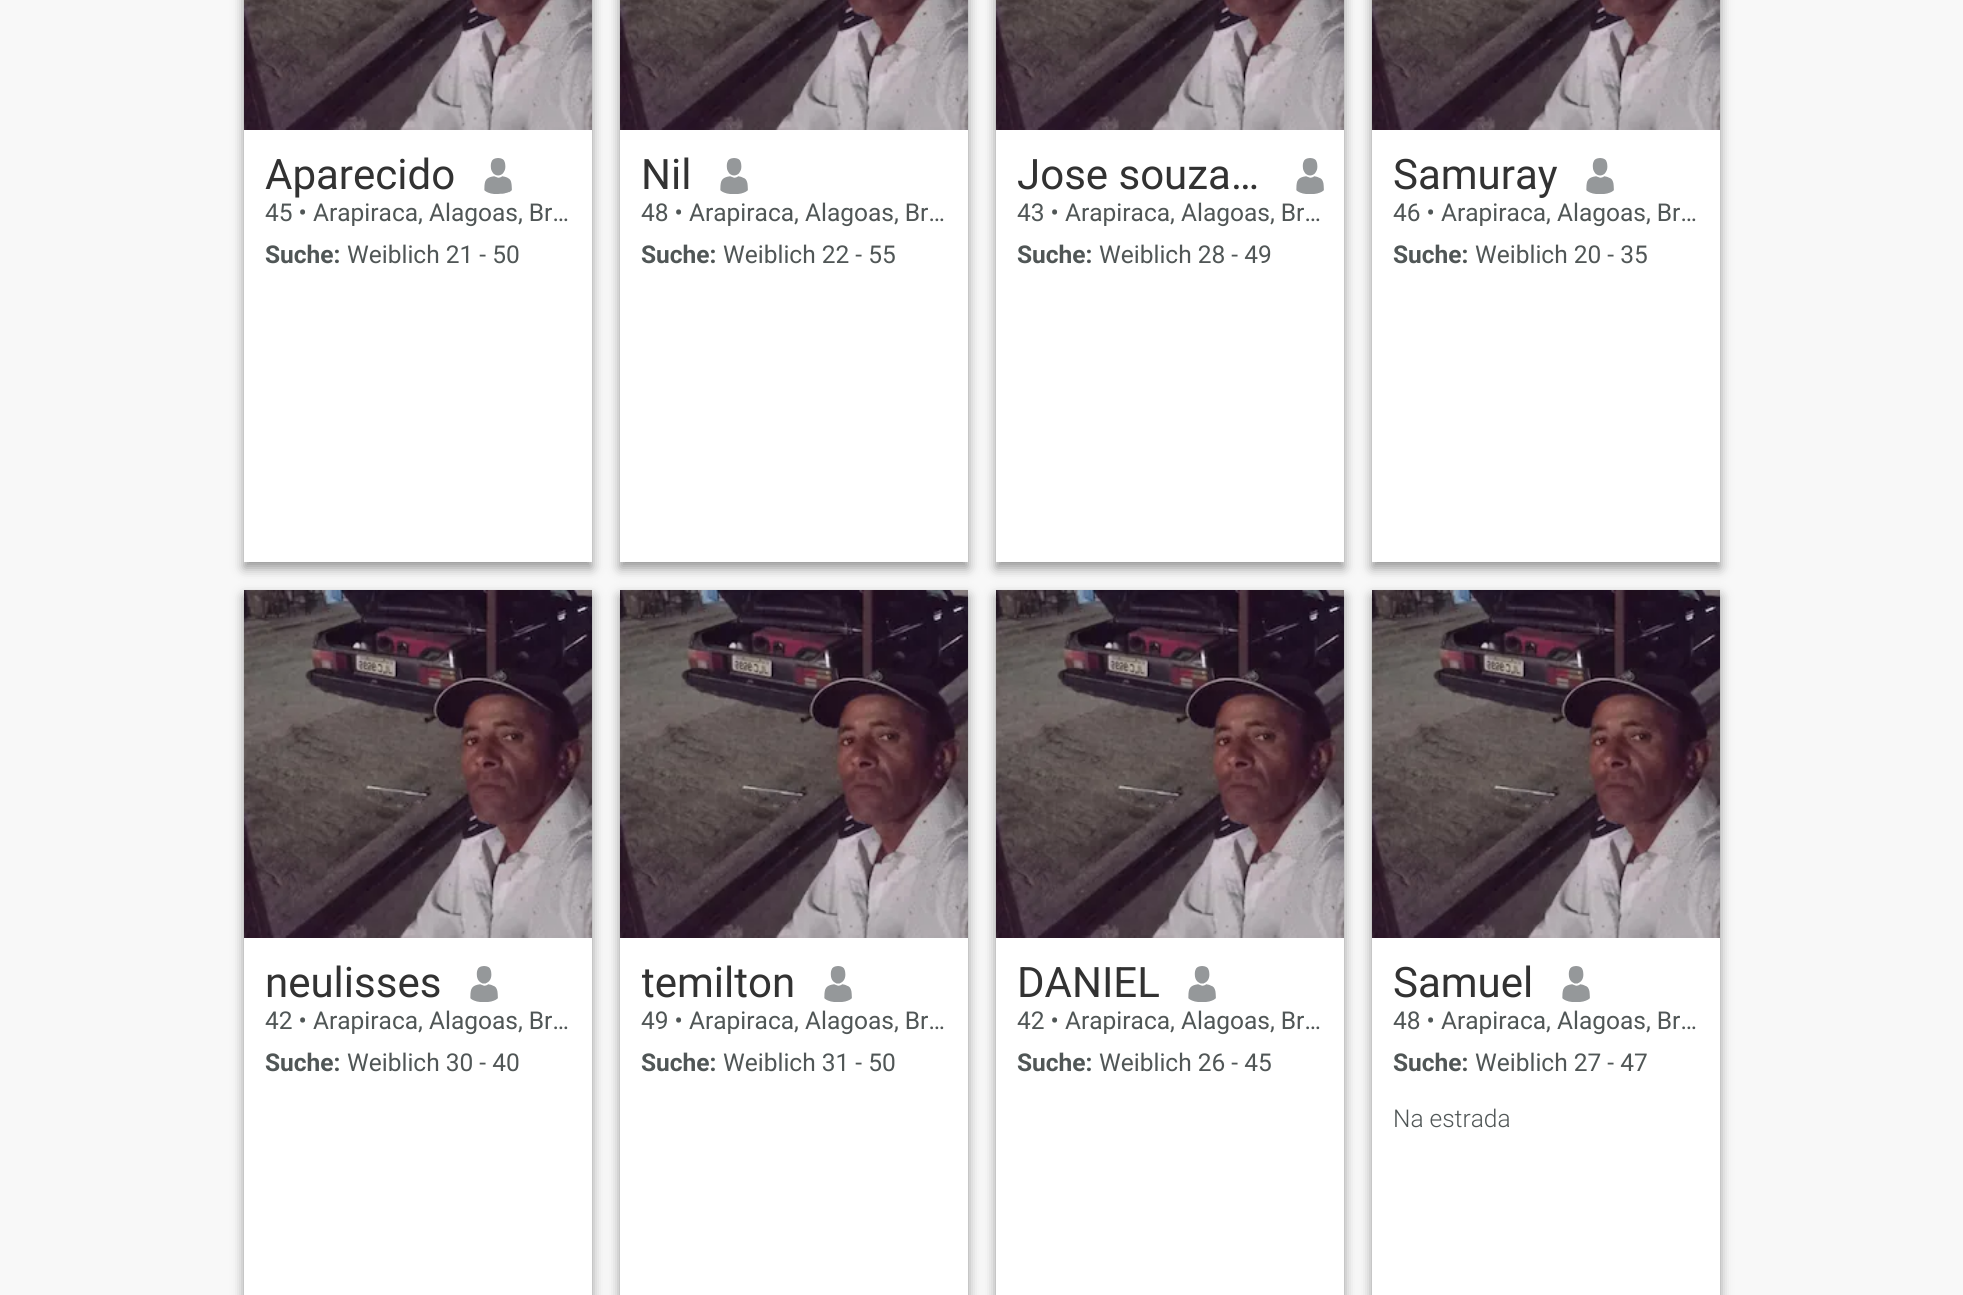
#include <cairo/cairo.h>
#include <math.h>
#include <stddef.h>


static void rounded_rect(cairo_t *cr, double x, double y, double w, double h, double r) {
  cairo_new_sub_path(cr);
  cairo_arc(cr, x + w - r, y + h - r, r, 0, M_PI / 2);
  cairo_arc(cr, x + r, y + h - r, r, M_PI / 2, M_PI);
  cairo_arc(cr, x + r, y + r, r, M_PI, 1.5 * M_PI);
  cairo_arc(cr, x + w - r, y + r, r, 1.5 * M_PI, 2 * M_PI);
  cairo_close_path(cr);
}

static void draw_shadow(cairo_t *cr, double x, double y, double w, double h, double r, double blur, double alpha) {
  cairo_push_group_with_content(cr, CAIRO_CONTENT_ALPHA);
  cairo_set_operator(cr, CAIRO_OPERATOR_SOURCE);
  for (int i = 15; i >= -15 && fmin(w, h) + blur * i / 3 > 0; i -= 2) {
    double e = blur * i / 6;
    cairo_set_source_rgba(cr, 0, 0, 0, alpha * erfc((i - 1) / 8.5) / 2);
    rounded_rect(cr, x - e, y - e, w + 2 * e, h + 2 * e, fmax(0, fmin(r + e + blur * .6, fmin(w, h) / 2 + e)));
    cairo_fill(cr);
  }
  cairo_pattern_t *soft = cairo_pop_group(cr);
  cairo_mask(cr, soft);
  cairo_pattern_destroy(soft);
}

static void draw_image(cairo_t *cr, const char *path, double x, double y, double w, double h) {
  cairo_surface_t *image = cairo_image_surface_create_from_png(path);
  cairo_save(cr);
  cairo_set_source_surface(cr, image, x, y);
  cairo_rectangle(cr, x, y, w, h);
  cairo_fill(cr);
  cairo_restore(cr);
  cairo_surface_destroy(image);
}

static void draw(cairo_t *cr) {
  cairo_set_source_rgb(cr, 248 / 255.0, 248 / 255.0, 248 / 255.0);
  cairo_paint(cr);
  cairo_set_source_rgb(cr, 0, 0, 0);
  draw_shadow(cr, 244, -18, 348, 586, 0, 6, 0.4);
  cairo_set_source_rgb(cr, 1, 1, 1);
  cairo_rectangle(cr, 244, 130, 348, 432);
  cairo_fill(cr);
  draw_image(cr, "images/1.png", 244, 0, 348, 130);
  draw_image(cr, "images/2.png", 484, 158, 28, 36);
  cairo_set_source_rgb(cr, 0, 0, 0);
  draw_shadow(cr, 620, -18, 348, 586, 0, 6, 0.4);
  cairo_set_source_rgb(cr, 1, 1, 1);
  cairo_rectangle(cr, 620, 130, 348, 432);
  cairo_fill(cr);
  draw_image(cr, "images/3.png", 620, 0, 348, 130);
  draw_image(cr, "images/4.png", 720, 158, 28, 36);
  cairo_set_source_rgb(cr, 0, 0, 0);
  draw_shadow(cr, 996, -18, 348, 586, 0, 6, 0.4);
  cairo_set_source_rgb(cr, 1, 1, 1);
  cairo_rectangle(cr, 996, 130, 348, 432);
  cairo_fill(cr);
  draw_image(cr, "images/5.png", 996, 0, 348, 130);
  draw_image(cr, "images/4.png", 1296, 158, 28, 36);
  cairo_set_source_rgb(cr, 0, 0, 0);
  draw_shadow(cr, 1372, -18, 348, 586, 0, 6, 0.4);
  cairo_set_source_rgb(cr, 1, 1, 1);
  cairo_rectangle(cr, 1372, 130, 348, 432);
  cairo_fill(cr);
  draw_image(cr, "images/6.png", 1372, 0, 348, 130);
  draw_image(cr, "images/4.png", 1586, 158, 28, 36);
  cairo_set_source_rgb(cr, 0, 0, 0);
  draw_shadow(cr, 244, 596, 348, 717, 0, 6, 0.4);
  cairo_set_source_rgb(cr, 1, 1, 1);
  cairo_rectangle(cr, 244, 938, 348, 357);
  cairo_fill(cr);
  draw_image(cr, "images/7.png", 244, 590, 348, 348);
  draw_image(cr, "images/8.png", 470, 966, 28, 36);
  cairo_set_source_rgb(cr, 0, 0, 0);
  draw_shadow(cr, 620, 596, 348, 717, 0, 6, 0.4);
  cairo_set_source_rgb(cr, 1, 1, 1);
  cairo_rectangle(cr, 620, 938, 348, 357);
  cairo_fill(cr);
  draw_image(cr, "images/9.png", 620, 590, 348, 348);
  draw_image(cr, "images/8.png", 824, 966, 28, 36);
  cairo_set_source_rgb(cr, 0, 0, 0);
  draw_shadow(cr, 996, 596, 348, 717, 0, 6, 0.4);
  cairo_set_source_rgb(cr, 1, 1, 1);
  cairo_rectangle(cr, 996, 938, 348, 357);
  cairo_fill(cr);
  draw_image(cr, "images/10.png", 996, 590, 348, 348);
  draw_image(cr, "images/8.png", 1188, 966, 28, 36);
  cairo_set_source_rgb(cr, 0, 0, 0);
  draw_shadow(cr, 1372, 596, 348, 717, 0, 6, 0.4);
  cairo_set_source_rgb(cr, 1, 1, 1);
  cairo_rectangle(cr, 1372, 938, 348, 357);
  cairo_fill(cr);
  draw_image(cr, "images/11.png", 1372, 590, 348, 348);
  draw_image(cr, "images/8.png", 1562, 966, 28, 36);
  cairo_select_font_face(cr, "Roboto", CAIRO_FONT_SLANT_NORMAL, CAIRO_FONT_WEIGHT_NORMAL);
  cairo_set_font_size(cr, 42);
  cairo_set_source_rgb(cr, 50 / 255.0, 50 / 255.0, 50 / 255.0);
  cairo_move_to(cr, 265, 189);
  cairo_show_text(cr, "Aparecido");
  cairo_set_font_size(cr, 24.5);
  cairo_set_source_rgb(cr, 80 / 255.0, 86 / 255.0, 86 / 255.0);
  cairo_move_to(cr, 265, 221);
  cairo_show_text(cr, "45 • Arapiraca, Alagoas, Br…");
  cairo_select_font_face(cr, "Roboto", CAIRO_FONT_SLANT_NORMAL, CAIRO_FONT_WEIGHT_BOLD);
  cairo_move_to(cr, 265, 263);
  cairo_show_text(cr, "Suche:");
  cairo_select_font_face(cr, "Roboto", CAIRO_FONT_SLANT_NORMAL, CAIRO_FONT_WEIGHT_NORMAL);
  cairo_move_to(cr, 347, 263);
  cairo_show_text(cr, "Weiblich 21 - 50");
  cairo_set_font_size(cr, 42);
  cairo_set_source_rgb(cr, 50 / 255.0, 50 / 255.0, 50 / 255.0);
  cairo_move_to(cr, 641, 189);
  cairo_show_text(cr, "Nil");
  cairo_set_font_size(cr, 24.5);
  cairo_set_source_rgb(cr, 80 / 255.0, 86 / 255.0, 86 / 255.0);
  cairo_move_to(cr, 641, 221);
  cairo_show_text(cr, "48 • Arapiraca, Alagoas, Br…");
  cairo_select_font_face(cr, "Roboto", CAIRO_FONT_SLANT_NORMAL, CAIRO_FONT_WEIGHT_BOLD);
  cairo_move_to(cr, 641, 263);
  cairo_show_text(cr, "Suche:");
  cairo_select_font_face(cr, "Roboto", CAIRO_FONT_SLANT_NORMAL, CAIRO_FONT_WEIGHT_NORMAL);
  cairo_move_to(cr, 723, 263);
  cairo_show_text(cr, "Weiblich 22 - 55");
  cairo_set_font_size(cr, 42);
  cairo_set_source_rgb(cr, 50 / 255.0, 50 / 255.0, 50 / 255.0);
  cairo_move_to(cr, 1017, 189);
  cairo_show_text(cr, "Jose souza…");
  cairo_set_font_size(cr, 24.5);
  cairo_set_source_rgb(cr, 80 / 255.0, 86 / 255.0, 86 / 255.0);
  cairo_move_to(cr, 1017, 221);
  cairo_show_text(cr, "43 • Arapiraca, Alagoas, Br…");
  cairo_select_font_face(cr, "Roboto", CAIRO_FONT_SLANT_NORMAL, CAIRO_FONT_WEIGHT_BOLD);
  cairo_move_to(cr, 1017, 263);
  cairo_show_text(cr, "Suche:");
  cairo_select_font_face(cr, "Roboto", CAIRO_FONT_SLANT_NORMAL, CAIRO_FONT_WEIGHT_NORMAL);
  cairo_move_to(cr, 1099, 263);
  cairo_show_text(cr, "Weiblich 28 - 49");
  cairo_set_font_size(cr, 42);
  cairo_set_source_rgb(cr, 50 / 255.0, 50 / 255.0, 50 / 255.0);
  cairo_move_to(cr, 1393, 189);
  cairo_show_text(cr, "Samuray");
  cairo_set_font_size(cr, 24.5);
  cairo_set_source_rgb(cr, 80 / 255.0, 86 / 255.0, 86 / 255.0);
  cairo_move_to(cr, 1393, 221);
  cairo_show_text(cr, "46 • Arapiraca, Alagoas, Br…");
  cairo_select_font_face(cr, "Roboto", CAIRO_FONT_SLANT_NORMAL, CAIRO_FONT_WEIGHT_BOLD);
  cairo_move_to(cr, 1393, 263);
  cairo_show_text(cr, "Suche:");
  cairo_select_font_face(cr, "Roboto", CAIRO_FONT_SLANT_NORMAL, CAIRO_FONT_WEIGHT_NORMAL);
  cairo_move_to(cr, 1475, 263);
  cairo_show_text(cr, "Weiblich 20 - 35");
  cairo_set_font_size(cr, 42);
  cairo_set_source_rgb(cr, 50 / 255.0, 50 / 255.0, 50 / 255.0);
  cairo_move_to(cr, 265, 997);
  cairo_show_text(cr, "neulisses");
  cairo_set_font_size(cr, 24.5);
  cairo_set_source_rgb(cr, 80 / 255.0, 86 / 255.0, 86 / 255.0);
  cairo_move_to(cr, 265, 1029);
  cairo_show_text(cr, "42 • Arapiraca, Alagoas, Br…");
  cairo_select_font_face(cr, "Roboto", CAIRO_FONT_SLANT_NORMAL, CAIRO_FONT_WEIGHT_BOLD);
  cairo_move_to(cr, 265, 1071);
  cairo_show_text(cr, "Suche:");
  cairo_select_font_face(cr, "Roboto", CAIRO_FONT_SLANT_NORMAL, CAIRO_FONT_WEIGHT_NORMAL);
  cairo_move_to(cr, 347, 1071);
  cairo_show_text(cr, "Weiblich 30 - 40");
  cairo_save(cr);
  cairo_rectangle(cr, 642, 960, 154, 48);
  cairo_clip(cr);
  cairo_set_font_size(cr, 42);
  cairo_set_source_rgb(cr, 50 / 255.0, 50 / 255.0, 50 / 255.0);
  cairo_move_to(cr, 641, 997);
  cairo_show_text(cr, "temilton");
  cairo_restore(cr);
  cairo_move_to(cr, 641, 1029);
  cairo_show_text(cr, "49 • Arapiraca, Alagoas, Br…");
  cairo_select_font_face(cr, "Roboto", CAIRO_FONT_SLANT_NORMAL, CAIRO_FONT_WEIGHT_BOLD);
  cairo_move_to(cr, 641, 1071);
  cairo_show_text(cr, "Suche:");
  cairo_select_font_face(cr, "Roboto", CAIRO_FONT_SLANT_NORMAL, CAIRO_FONT_WEIGHT_NORMAL);
  cairo_move_to(cr, 723, 1071);
  cairo_show_text(cr, "Weiblich 31 - 50");
  cairo_set_font_size(cr, 42);
  cairo_set_source_rgb(cr, 50 / 255.0, 50 / 255.0, 50 / 255.0);
  cairo_move_to(cr, 1017, 997);
  cairo_show_text(cr, "DANIEL");
  cairo_set_font_size(cr, 24.5);
  cairo_set_source_rgb(cr, 80 / 255.0, 86 / 255.0, 86 / 255.0);
  cairo_move_to(cr, 1017, 1029);
  cairo_show_text(cr, "42 • Arapiraca, Alagoas, Br…");
  cairo_select_font_face(cr, "Roboto", CAIRO_FONT_SLANT_NORMAL, CAIRO_FONT_WEIGHT_BOLD);
  cairo_move_to(cr, 1017, 1071);
  cairo_show_text(cr, "Suche:");
  cairo_select_font_face(cr, "Roboto", CAIRO_FONT_SLANT_NORMAL, CAIRO_FONT_WEIGHT_NORMAL);
  cairo_move_to(cr, 1099, 1071);
  cairo_show_text(cr, "Weiblich 26 - 45");
  cairo_set_font_size(cr, 42);
  cairo_set_source_rgb(cr, 50 / 255.0, 50 / 255.0, 50 / 255.0);
  cairo_move_to(cr, 1393, 997);
  cairo_show_text(cr, "Samuel");
  cairo_set_font_size(cr, 24.5);
  cairo_set_source_rgb(cr, 80 / 255.0, 86 / 255.0, 86 / 255.0);
  cairo_move_to(cr, 1393, 1029);
  cairo_show_text(cr, "48 • Arapiraca, Alagoas, Br…");
  cairo_select_font_face(cr, "Roboto", CAIRO_FONT_SLANT_NORMAL, CAIRO_FONT_WEIGHT_BOLD);
  cairo_move_to(cr, 1393, 1071);
  cairo_show_text(cr, "Suche:");
  cairo_select_font_face(cr, "Roboto", CAIRO_FONT_SLANT_NORMAL, CAIRO_FONT_WEIGHT_NORMAL);
  cairo_move_to(cr, 1475, 1071);
  cairo_show_text(cr, "Weiblich 27 - 47");
  cairo_select_font_face(cr, "Roboto Light", CAIRO_FONT_SLANT_NORMAL, CAIRO_FONT_WEIGHT_NORMAL);
  cairo_move_to(cr, 1393, 1127);
  cairo_show_text(cr, "Na estrada");
}

int main(void) {
  cairo_surface_t *surface = cairo_image_surface_create(CAIRO_FORMAT_RGB24, 1963, 1295);
  cairo_t *cr = cairo_create(surface);
  cairo_font_options_t *options = cairo_font_options_create();
  cairo_font_options_set_hint_metrics(options, CAIRO_HINT_METRICS_OFF);
  cairo_font_options_set_hint_style(options, CAIRO_HINT_STYLE_NONE);
  cairo_set_font_options(cr, options);
  cairo_set_miter_limit(cr, 4);
  draw(cr);
  cairo_surface_write_to_png(surface, "out.png");
  cairo_font_options_destroy(options);
  cairo_destroy(cr);
  cairo_surface_destroy(surface);
  return 0;
}
